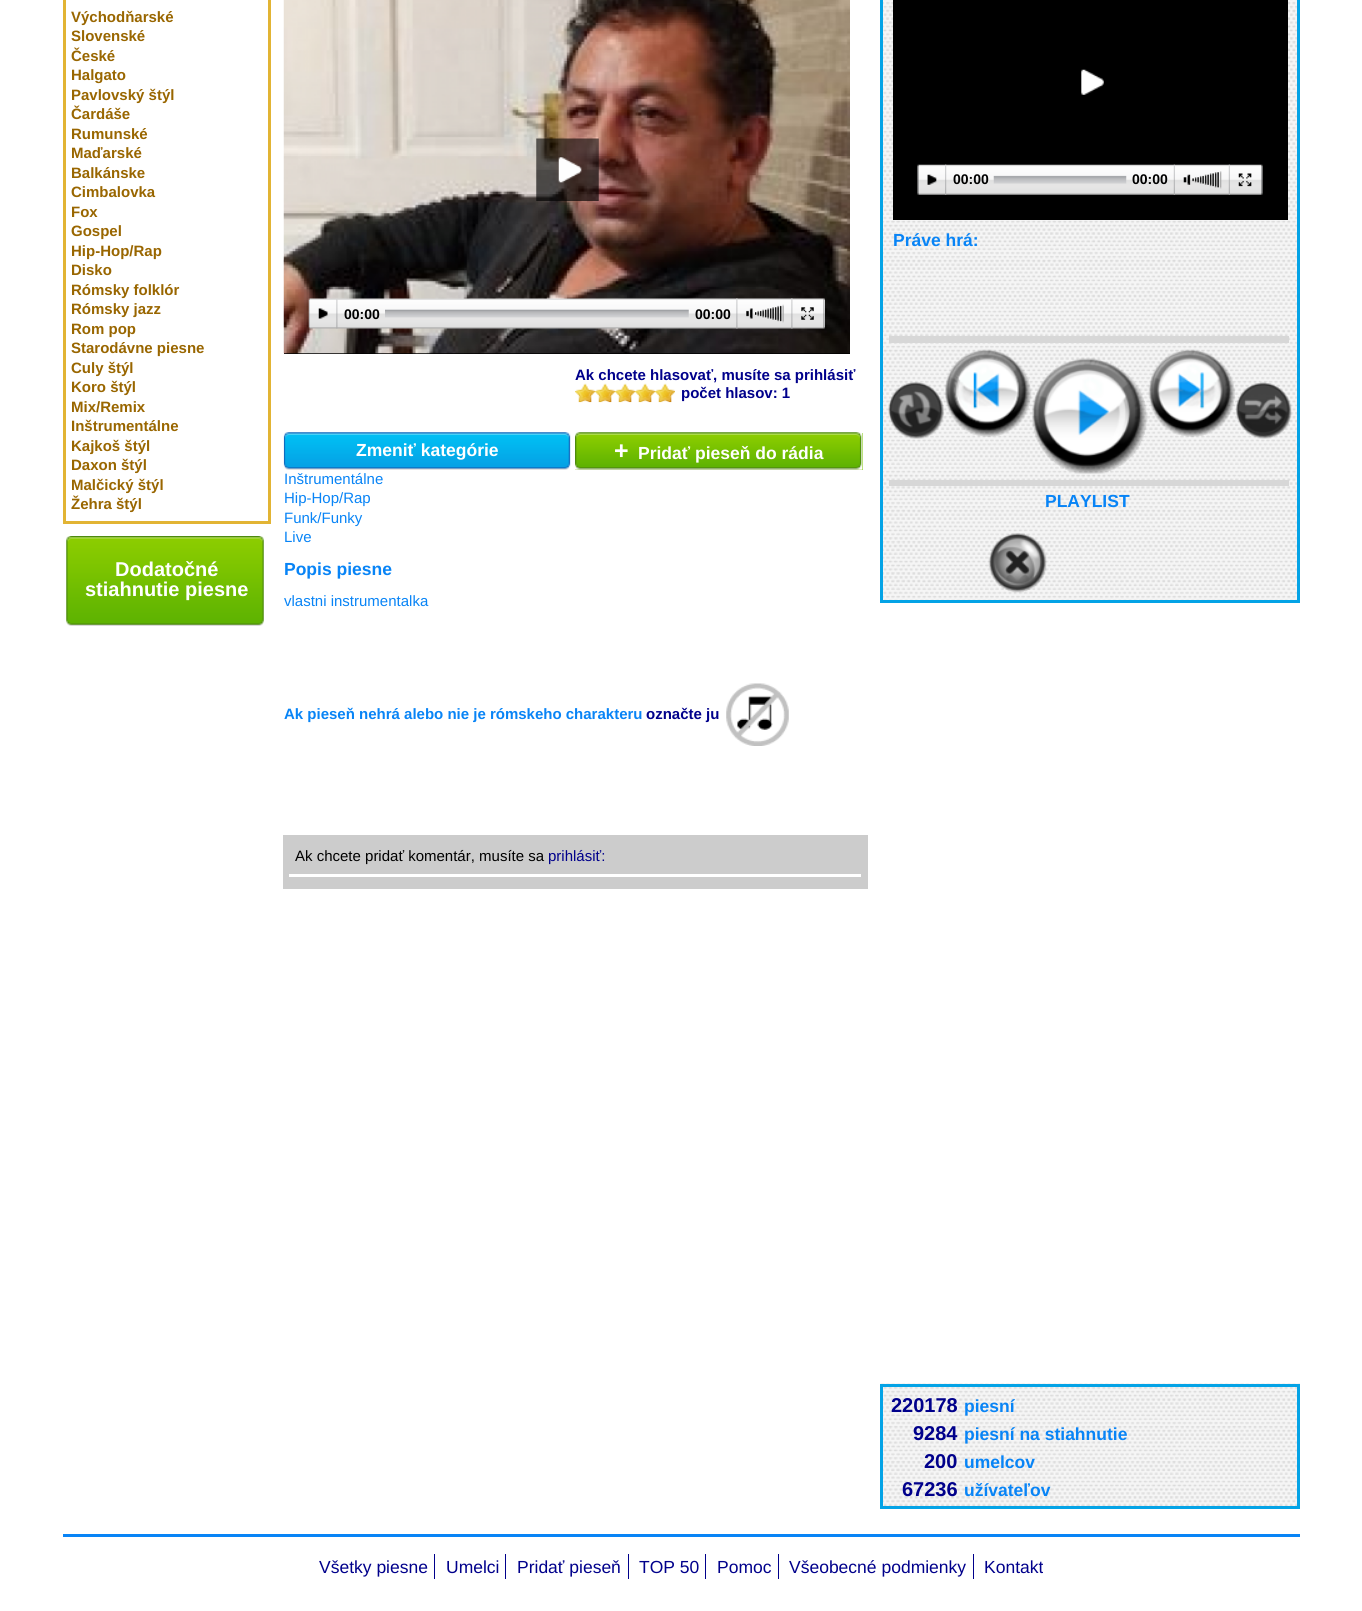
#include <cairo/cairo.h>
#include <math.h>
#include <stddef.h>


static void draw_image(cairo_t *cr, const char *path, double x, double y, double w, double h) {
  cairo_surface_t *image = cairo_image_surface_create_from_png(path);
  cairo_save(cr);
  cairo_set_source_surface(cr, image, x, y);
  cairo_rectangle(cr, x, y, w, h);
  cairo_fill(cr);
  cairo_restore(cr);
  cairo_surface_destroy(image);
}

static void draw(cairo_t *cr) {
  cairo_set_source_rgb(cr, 1, 1, 1);
  cairo_paint(cr);
  cairo_set_source_rgb(cr, 226 / 255.0, 180 / 255.0, 52 / 255.0);
  cairo_rectangle(cr, 268, 0, 3, 524);
  cairo_fill(cr);
  cairo_rectangle(cr, 63, 521, 207, 3);
  cairo_fill(cr);
  cairo_rectangle(cr, 63, 0, 3, 524);
  cairo_fill(cr);
  draw_image(cr, "images/1.png", 66, 536, 198, 90);
  cairo_set_source_rgb(cr, 0, 0, 0);
  cairo_rectangle(cr, 284, 353, 566, 1);
  cairo_fill(cr);
  draw_image(cr, "images/2.png", 283, 0, 567, 354);
  draw_image(cr, "images/3.png", 536, 138, 63, 63);
  draw_image(cr, "images/4.png", 558, 157, 24, 26);
  draw_image(cr, "images/5.png", 308, 298, 2, 31);
  draw_image(cr, "images/6.png", 310, 298, 514, 31);
  draw_image(cr, "images/7.png", 318, 308, 10, 11);
  draw_image(cr, "images/8.png", 336, 299, 2, 30);
  draw_image(cr, "images/9.png", 385, 309, 304, 9);
  draw_image(cr, "images/10.png", 736, 298, 2, 31);
  draw_image(cr, "images/11.png", 746, 308, 7, 11);
  draw_image(cr, "images/12.png", 755, 304, 29, 19);
  draw_image(cr, "images/13.png", 755, 305, 27, 17);
  draw_image(cr, "images/14.png", 791, 298, 2, 31);
  draw_image(cr, "images/15.png", 801, 307, 13, 13);
  draw_image(cr, "images/16.png", 823, 298, 2, 31);
  draw_image(cr, "images/21.png", 283, 432, 288, 38);
  cairo_set_source_rgb(cr, 119 / 255.0, 193 / 255.0, 0);
  cairo_rectangle(cr, 575, 433, 288, 37);
  cairo_fill(cr);
  draw_image(cr, "images/22.png", 575, 432, 288, 38);
  draw_image(cr, "images/23.png", 726, 683, 63, 63);
  cairo_set_source_rgb(cr, 204 / 255.0, 204 / 255.0, 204 / 255.0);
  cairo_rectangle(cr, 283, 835, 585, 54);
  cairo_fill(cr);
  cairo_set_source_rgb(cr, 1, 1, 1);
  cairo_rectangle(cr, 289, 874, 572, 3);
  cairo_fill(cr);
  draw_image(cr, "images/24.png", 883, 0, 414, 600);
  cairo_rectangle(cr, 881.5, -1.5, 417, 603);
  cairo_set_source_rgb(cr, 4 / 255.0, 163 / 255.0, 230 / 255.0);
  cairo_set_line_width(cr, 3);
  cairo_stroke(cr);
  cairo_set_source_rgb(cr, 0, 0, 0);
  cairo_rectangle(cr, 893, 0, 395, 220);
  cairo_fill(cr);
  draw_image(cr, "images/25.png", 1081, 69, 23, 26);
  draw_image(cr, "images/26.png", 917, 164, 2, 31);
  draw_image(cr, "images/27.png", 918, 164, 344, 31);
  draw_image(cr, "images/28.png", 927, 174, 10, 11);
  draw_image(cr, "images/29.png", 945, 164, 2, 31);
  draw_image(cr, "images/30.png", 993, 175, 134, 9);
  draw_image(cr, "images/31.png", 1173, 164, 2, 31);
  draw_image(cr, "images/32.png", 1183, 174, 8, 11);
  draw_image(cr, "images/33.png", 1192, 171, 30, 18);
  draw_image(cr, "images/34.png", 1192, 172, 27, 16);
  draw_image(cr, "images/31.png", 1228, 164, 2, 31);
  draw_image(cr, "images/35.png", 1238, 173, 14, 14);
  draw_image(cr, "images/36.png", 1261, 164, 2, 31);
  cairo_set_source_rgb(cr, 215 / 255.0, 215 / 255.0, 215 / 255.0);
  cairo_rectangle(cr, 889, 336, 400, 7);
  cairo_fill(cr);
  draw_image(cr, "images/37.png", 888, 382, 56, 57);
  draw_image(cr, "images/38.png", 945, 349, 87, 88);
  draw_image(cr, "images/39.png", 1032, 358, 116, 116);
  draw_image(cr, "images/40.png", 1148, 349, 87, 88);
  draw_image(cr, "images/41.png", 1236, 382, 56, 57);
  cairo_rectangle(cr, 889, 480, 400, 6);
  cairo_fill(cr);
  draw_image(cr, "images/42.png", 988, 533, 59, 60);
  draw_image(cr, "images/43.png", 880, 1383, 420, 123);
  cairo_rectangle(cr, 881.5, 1385.5, 417, 122);
  cairo_set_source_rgb(cr, 4 / 255.0, 163 / 255.0, 230 / 255.0);
  cairo_stroke(cr);
  cairo_set_source_rgb(cr, 8 / 255.0, 132 / 255.0, 246 / 255.0);
  cairo_rectangle(cr, 63, 1534, 1237, 3);
  cairo_fill(cr);
  cairo_set_source_rgb(cr, 0, 0, 139 / 255.0);
  cairo_rectangle(cr, 434, 1554, 1, 25);
  cairo_fill(cr);
  cairo_rectangle(cr, 505, 1554, 1, 25);
  cairo_fill(cr);
  cairo_rectangle(cr, 628, 1554, 1, 25);
  cairo_fill(cr);
  cairo_rectangle(cr, 705, 1554, 1, 25);
  cairo_fill(cr);
  cairo_rectangle(cr, 778, 1554, 1, 25);
  cairo_fill(cr);
  cairo_rectangle(cr, 973, 1554, 1, 25);
  cairo_fill(cr);
  cairo_select_font_face(cr, "Liberation Sans", CAIRO_FONT_SLANT_NORMAL, CAIRO_FONT_WEIGHT_BOLD);
  cairo_set_font_size(cr, 15);
  cairo_set_source_rgb(cr, 153 / 255.0, 102 / 255.0, 0);
  cairo_move_to(cr, 71, 22);
  cairo_show_text(cr, "Východňarské");
  cairo_move_to(cr, 71, 41);
  cairo_show_text(cr, "Slovenské");
  cairo_move_to(cr, 71, 61);
  cairo_show_text(cr, "České");
  cairo_move_to(cr, 71, 80);
  cairo_show_text(cr, "Halgato");
  cairo_move_to(cr, 71, 100);
  cairo_show_text(cr, "Pavlovský štýl");
  cairo_move_to(cr, 71, 119);
  cairo_show_text(cr, "Čardáše");
  cairo_move_to(cr, 71, 139);
  cairo_show_text(cr, "Rumunské");
  cairo_move_to(cr, 71, 158);
  cairo_show_text(cr, "Maďarské");
  cairo_move_to(cr, 71, 178);
  cairo_show_text(cr, "Balkánske");
  cairo_move_to(cr, 71, 197);
  cairo_show_text(cr, "Cimbalovka");
  cairo_move_to(cr, 71, 217);
  cairo_show_text(cr, "Fox");
  cairo_move_to(cr, 71, 236);
  cairo_show_text(cr, "Gospel");
  cairo_move_to(cr, 71, 256);
  cairo_show_text(cr, "Hip-Hop/Rap");
  cairo_move_to(cr, 71, 275);
  cairo_show_text(cr, "Disko");
  cairo_move_to(cr, 71, 295);
  cairo_show_text(cr, "Rómsky folklór");
  cairo_move_to(cr, 71, 314);
  cairo_show_text(cr, "Rómsky jazz");
  cairo_move_to(cr, 71, 334);
  cairo_show_text(cr, "Rom pop");
  cairo_move_to(cr, 71, 353);
  cairo_show_text(cr, "Starodávne piesne");
  cairo_move_to(cr, 71, 373);
  cairo_show_text(cr, "Culy štýl");
  cairo_move_to(cr, 71, 392);
  cairo_show_text(cr, "Koro štýl");
  cairo_move_to(cr, 71, 412);
  cairo_show_text(cr, "Mix/Remix");
  cairo_move_to(cr, 71, 431);
  cairo_show_text(cr, "Inštrumentálne");
  cairo_move_to(cr, 71, 451);
  cairo_show_text(cr, "Kajkoš štýl");
  cairo_move_to(cr, 71, 470);
  cairo_show_text(cr, "Daxon štýl");
  cairo_move_to(cr, 71, 490);
  cairo_show_text(cr, "Malčický štýl");
  cairo_move_to(cr, 71, 509);
  cairo_show_text(cr, "Žehra štýl");
  cairo_set_font_size(cr, 20);
  cairo_set_source_rgb(cr, 1, 1, 1);
  cairo_move_to(cr, 115, 576);
  cairo_show_text(cr, "Dodatočné");
  cairo_move_to(cr, 85, 596);
  cairo_show_text(cr, "stiahnutie piesne");
  cairo_set_font_size(cr, 14);
  cairo_set_source_rgb(cr, 0, 0, 0);
  cairo_move_to(cr, 344, 319);
  cairo_show_text(cr, "00:00");
  cairo_move_to(cr, 695, 319);
  cairo_show_text(cr, "00:00");
  cairo_set_font_size(cr, 15);
  cairo_set_source_rgb(cr, 0, 0, 139 / 255.0);
  cairo_move_to(cr, 575, 380);
  cairo_show_text(cr, "Ak chcete hlasovať, musíte sa prihlásiť");
  draw_image(cr, "images/17.png", 575, 383, 10, 20);
  draw_image(cr, "images/18.png", 585, 383, 10, 20);
  draw_image(cr, "images/19.png", 595, 383, 10, 20);
  draw_image(cr, "images/20.png", 605, 383, 10, 20);
  draw_image(cr, "images/19.png", 615, 383, 10, 20);
  draw_image(cr, "images/20.png", 625, 383, 10, 20);
  draw_image(cr, "images/19.png", 635, 383, 10, 20);
  draw_image(cr, "images/20.png", 645, 383, 10, 20);
  draw_image(cr, "images/19.png", 655, 383, 10, 20);
  draw_image(cr, "images/20.png", 665, 383, 10, 20);
  cairo_move_to(cr, 681, 398);
  cairo_show_text(cr, "počet hlasov: 1");
  cairo_set_font_size(cr, 17.5);
  cairo_set_source_rgb(cr, 1, 1, 1);
  cairo_move_to(cr, 356, 456);
  cairo_show_text(cr, "Zmeniť kategórie");
  cairo_select_font_face(cr, "Liberation Sans", CAIRO_FONT_SLANT_NORMAL, CAIRO_FONT_WEIGHT_NORMAL);
  cairo_set_font_size(cr, 15);
  cairo_set_source_rgb(cr, 8 / 255.0, 132 / 255.0, 246 / 255.0);
  cairo_move_to(cr, 284, 484);
  cairo_show_text(cr, "Inštrumentálne");
  cairo_move_to(cr, 284, 503);
  cairo_show_text(cr, "Hip-Hop/Rap");
  cairo_move_to(cr, 284, 523);
  cairo_show_text(cr, "Funk/Funky");
  cairo_move_to(cr, 284, 542);
  cairo_show_text(cr, "Live");
  cairo_select_font_face(cr, "Liberation Sans", CAIRO_FONT_SLANT_NORMAL, CAIRO_FONT_WEIGHT_BOLD);
  cairo_set_font_size(cr, 25);
  cairo_set_source_rgb(cr, 1, 1, 1);
  cairo_move_to(cr, 614, 459);
  cairo_show_text(cr, "+");
  cairo_set_font_size(cr, 17.5);
  cairo_move_to(cr, 638, 459);
  cairo_show_text(cr, "Pridať pieseň do rádia");
  cairo_set_source_rgb(cr, 8 / 255.0, 132 / 255.0, 246 / 255.0);
  cairo_move_to(cr, 284, 575);
  cairo_show_text(cr, "Popis piesne");
  cairo_select_font_face(cr, "Liberation Sans", CAIRO_FONT_SLANT_NORMAL, CAIRO_FONT_WEIGHT_NORMAL);
  cairo_set_font_size(cr, 15);
  cairo_move_to(cr, 284, 606);
  cairo_show_text(cr, "vlastni instrumentalka");
  cairo_select_font_face(cr, "Liberation Sans", CAIRO_FONT_SLANT_NORMAL, CAIRO_FONT_WEIGHT_BOLD);
  cairo_move_to(cr, 284, 719);
  cairo_show_text(cr, "Ak pieseň nehrá alebo nie je rómskeho charakteru");
  cairo_set_source_rgb(cr, 0, 0, 139 / 255.0);
  cairo_move_to(cr, 646, 719);
  cairo_show_text(cr, "označte ju");
  cairo_select_font_face(cr, "Liberation Sans", CAIRO_FONT_SLANT_NORMAL, CAIRO_FONT_WEIGHT_NORMAL);
  cairo_set_source_rgb(cr, 0, 0, 0);
  cairo_move_to(cr, 295, 861);
  cairo_show_text(cr, "Ak chcete pridať komentár, musíte sa");
  cairo_set_source_rgb(cr, 0, 0, 139 / 255.0);
  cairo_move_to(cr, 548, 861);
  cairo_show_text(cr, "prihlásiť:");
  cairo_select_font_face(cr, "Liberation Sans", CAIRO_FONT_SLANT_NORMAL, CAIRO_FONT_WEIGHT_BOLD);
  cairo_set_font_size(cr, 14);
  cairo_set_source_rgb(cr, 0, 0, 0);
  cairo_move_to(cr, 953, 184);
  cairo_show_text(cr, "00:00");
  cairo_move_to(cr, 1132, 184);
  cairo_show_text(cr, "00:00");
  cairo_set_font_size(cr, 17.5);
  cairo_set_source_rgb(cr, 8 / 255.0, 132 / 255.0, 246 / 255.0);
  cairo_move_to(cr, 893, 246);
  cairo_show_text(cr, "Práve hrá:");
  cairo_move_to(cr, 1045, 507);
  cairo_show_text(cr, "PLAYLIST");
  cairo_set_font_size(cr, 20);
  cairo_set_source_rgb(cr, 0, 0, 139 / 255.0);
  cairo_move_to(cr, 891, 1412);
  cairo_show_text(cr, "220178");
  cairo_set_font_size(cr, 17.5);
  cairo_set_source_rgb(cr, 8 / 255.0, 132 / 255.0, 246 / 255.0);
  cairo_move_to(cr, 964, 1412);
  cairo_show_text(cr, "piesní");
  cairo_set_font_size(cr, 20);
  cairo_set_source_rgb(cr, 0, 0, 139 / 255.0);
  cairo_move_to(cr, 913, 1440);
  cairo_show_text(cr, "9284");
  cairo_set_font_size(cr, 17.5);
  cairo_set_source_rgb(cr, 8 / 255.0, 132 / 255.0, 246 / 255.0);
  cairo_move_to(cr, 964, 1440);
  cairo_show_text(cr, "piesní na stiahnutie");
  cairo_set_font_size(cr, 20);
  cairo_set_source_rgb(cr, 0, 0, 139 / 255.0);
  cairo_move_to(cr, 924, 1468);
  cairo_show_text(cr, "200");
  cairo_set_font_size(cr, 17.5);
  cairo_set_source_rgb(cr, 8 / 255.0, 132 / 255.0, 246 / 255.0);
  cairo_move_to(cr, 964, 1468);
  cairo_show_text(cr, "umelcov");
  cairo_set_font_size(cr, 20);
  cairo_set_source_rgb(cr, 0, 0, 139 / 255.0);
  cairo_move_to(cr, 902, 1496);
  cairo_show_text(cr, "67236");
  cairo_set_font_size(cr, 17.5);
  cairo_set_source_rgb(cr, 8 / 255.0, 132 / 255.0, 246 / 255.0);
  cairo_move_to(cr, 964, 1496);
  cairo_show_text(cr, "užívateľov");
  cairo_select_font_face(cr, "Liberation Sans", CAIRO_FONT_SLANT_NORMAL, CAIRO_FONT_WEIGHT_NORMAL);
  cairo_set_source_rgb(cr, 0, 0, 139 / 255.0);
  cairo_move_to(cr, 319, 1573);
  cairo_show_text(cr, "Všetky piesne");
  cairo_move_to(cr, 446, 1573);
  cairo_show_text(cr, "Umelci");
  cairo_move_to(cr, 517, 1573);
  cairo_show_text(cr, "Pridať pieseň");
  cairo_move_to(cr, 639, 1573);
  cairo_show_text(cr, "TOP 50");
  cairo_move_to(cr, 717, 1573);
  cairo_show_text(cr, "Pomoc");
  cairo_move_to(cr, 789, 1573);
  cairo_show_text(cr, "Všeobecné podmienky");
  cairo_move_to(cr, 984, 1573);
  cairo_show_text(cr, "Kontakt");
}

int main(void) {
  cairo_surface_t *surface = cairo_image_surface_create(CAIRO_FORMAT_RGB24, 1362, 1611);
  cairo_t *cr = cairo_create(surface);
  cairo_font_options_t *options = cairo_font_options_create();
  cairo_font_options_set_hint_metrics(options, CAIRO_HINT_METRICS_OFF);
  cairo_font_options_set_hint_style(options, CAIRO_HINT_STYLE_NONE);
  cairo_set_font_options(cr, options);
  cairo_set_miter_limit(cr, 4);
  draw(cr);
  cairo_surface_write_to_png(surface, "out.png");
  cairo_font_options_destroy(options);
  cairo_destroy(cr);
  cairo_surface_destroy(surface);
  return 0;
}
